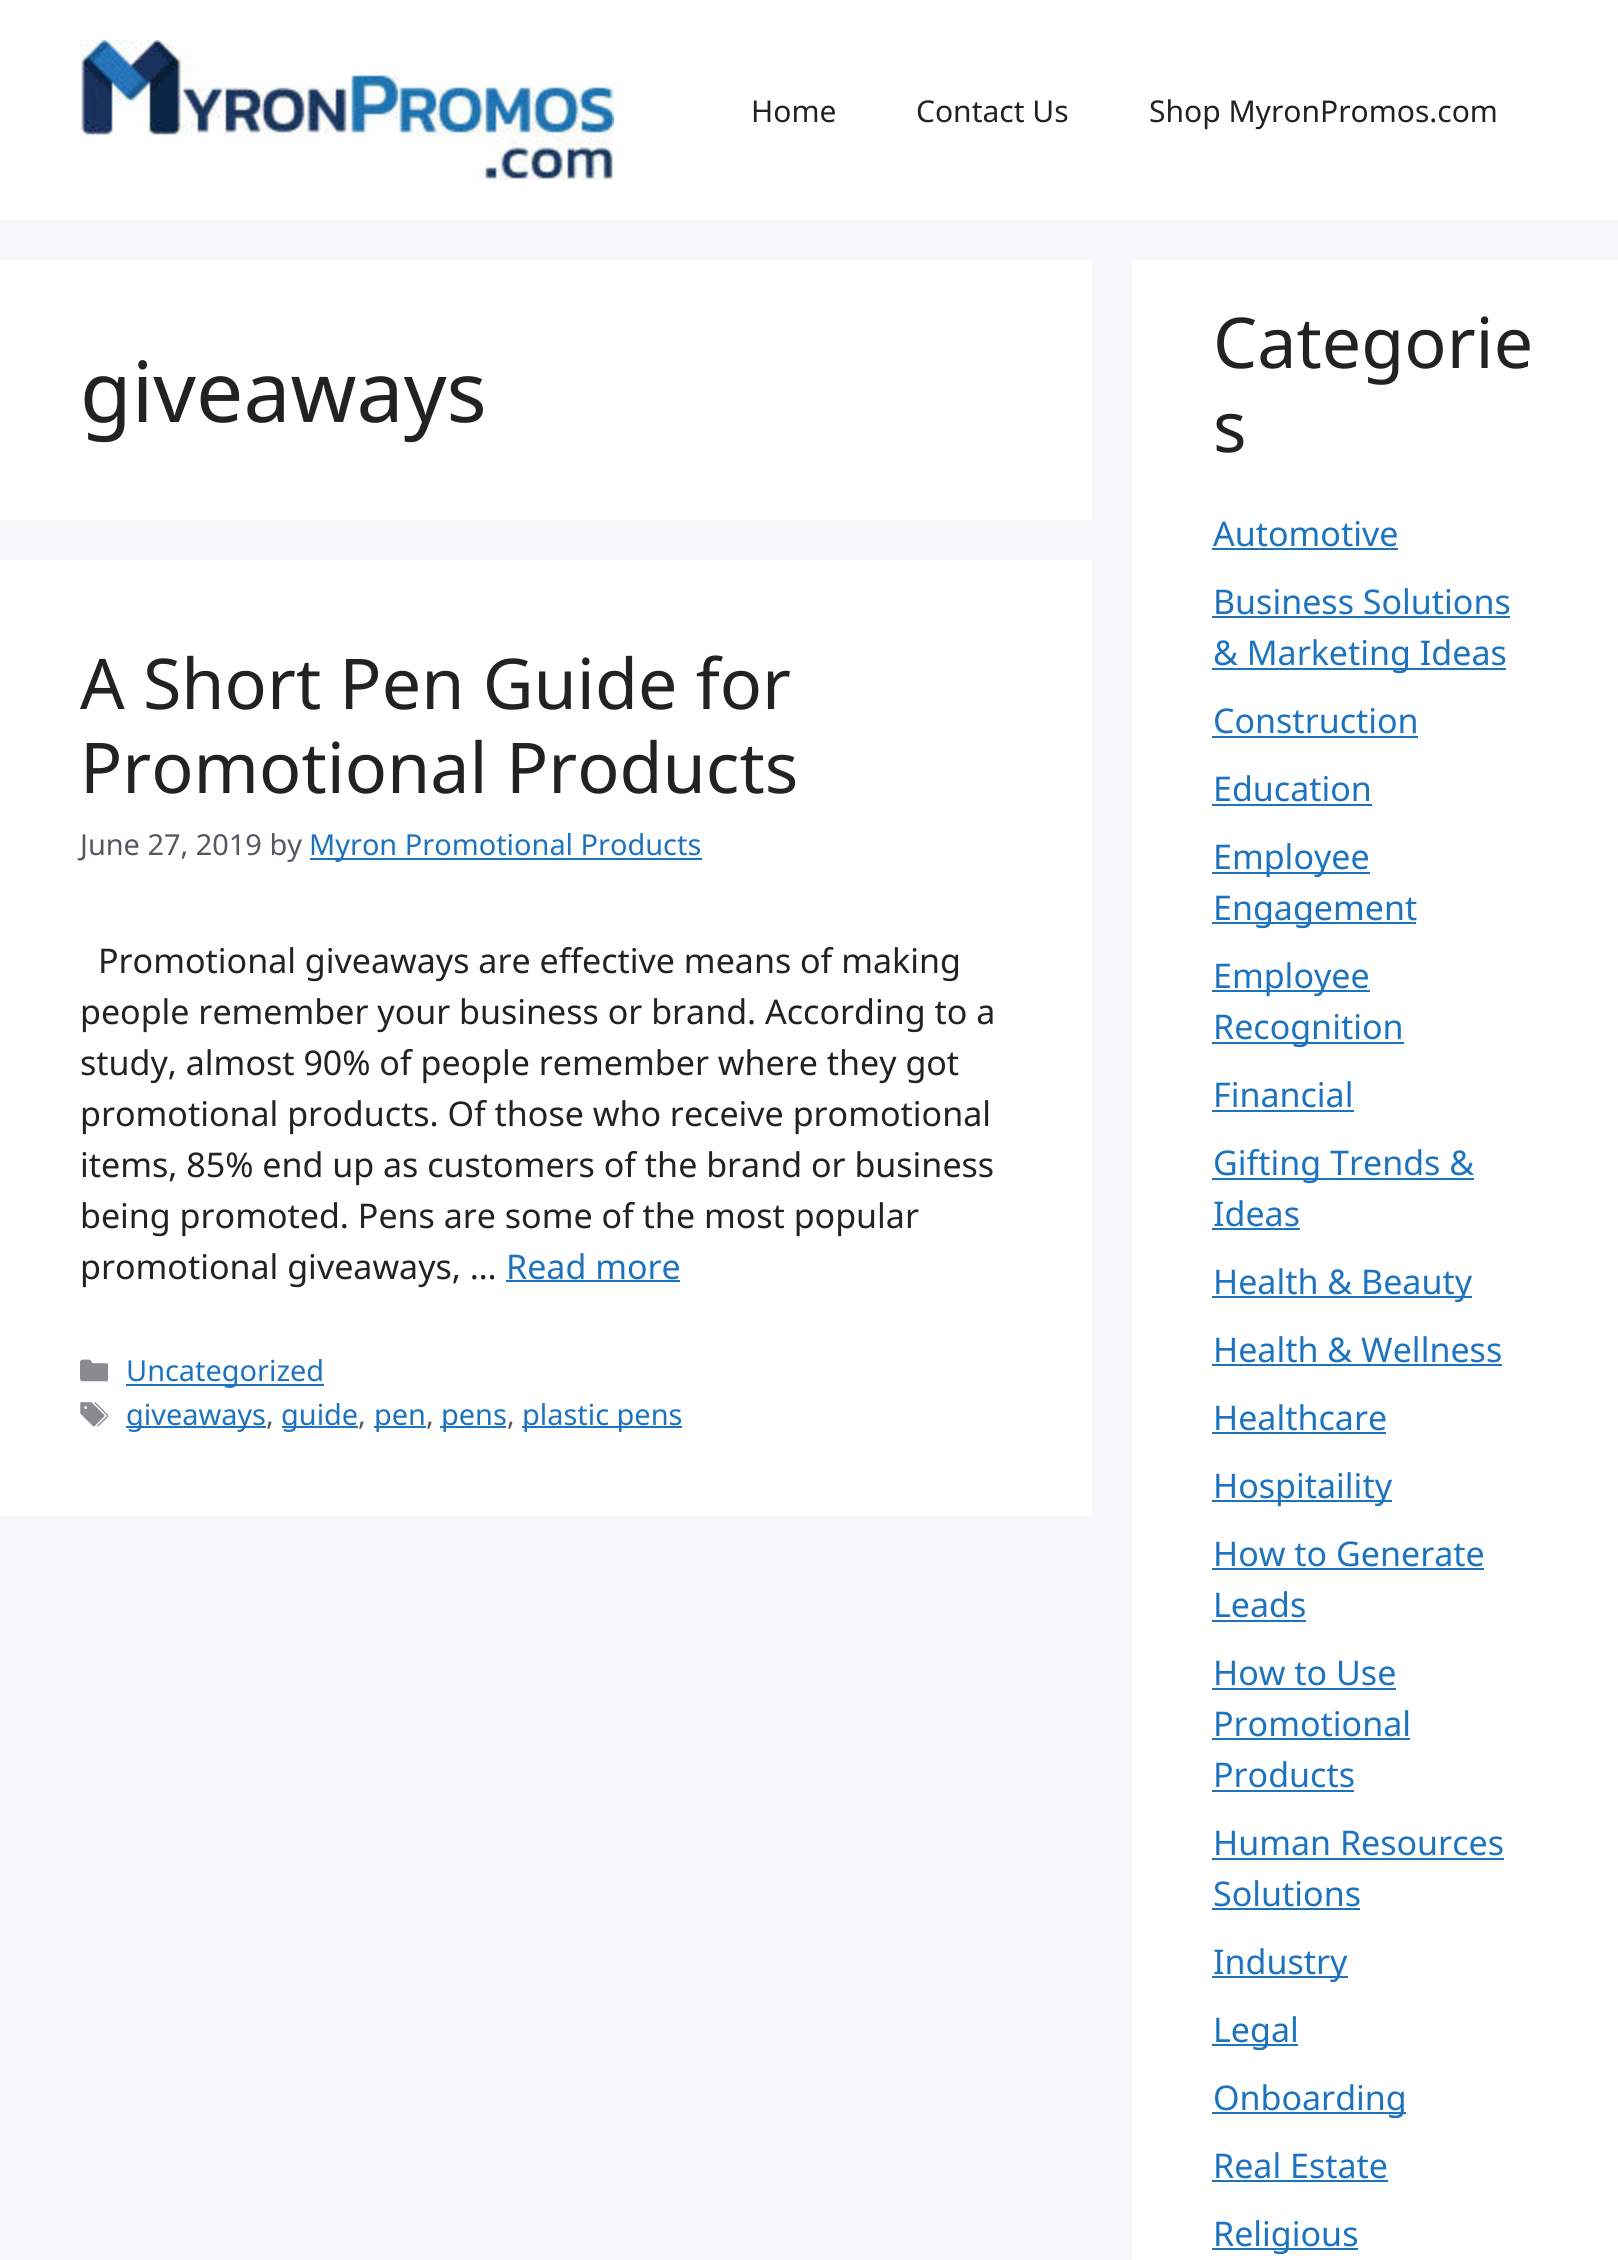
#include <cairo/cairo.h>
#include <math.h>
#include <stddef.h>


static void draw_image(cairo_t *cr, const char *path, double x, double y, double w, double h) {
  cairo_surface_t *image = cairo_image_surface_create_from_png(path);
  cairo_save(cr);
  cairo_set_source_surface(cr, image, x, y);
  cairo_rectangle(cr, x, y, w, h);
  cairo_fill(cr);
  cairo_restore(cr);
  cairo_surface_destroy(image);
}

static void draw(cairo_t *cr) {
  cairo_set_source_rgb(cr, 247 / 255.0, 248 / 255.0, 249 / 255.0);
  cairo_paint(cr);
  cairo_set_source_rgb(cr, 1, 1, 1);
  cairo_rectangle(cr, 0, 0, 1618, 220);
  cairo_fill(cr);
  draw_image(cr, "images/1.png", 80, 40, 534, 140);
  cairo_rectangle(cr, 0, 260, 1092, 260);
  cairo_fill(cr);
  cairo_rectangle(cr, 0, 560, 1092, 956);
  cairo_fill(cr);
  cairo_set_source_rgb(cr, 30 / 255.0, 115 / 255.0, 190 / 255.0);
  cairo_rectangle(cr, 310, 858, 392, 2);
  cairo_fill(cr);
  cairo_rectangle(cr, 506, 1280, 174, 2);
  cairo_fill(cr);
  draw_image(cr, "images/2.png", 80, 1359, 28, 23);
  cairo_rectangle(cr, 126, 1384, 198, 2);
  cairo_fill(cr);
  draw_image(cr, "images/3.png", 80, 1402, 28, 25);
  cairo_rectangle(cr, 126, 1426, 140, 2);
  cairo_fill(cr);
  cairo_rectangle(cr, 282, 1426, 76, 2);
  cairo_fill(cr);
  cairo_rectangle(cr, 374, 1426, 52, 2);
  cairo_fill(cr);
  cairo_rectangle(cr, 440, 1426, 66, 2);
  cairo_fill(cr);
  cairo_rectangle(cr, 522, 1426, 160, 2);
  cairo_fill(cr);
  cairo_set_source_rgb(cr, 1, 1, 1);
  cairo_rectangle(cr, 1132, 260, 486, 2000);
  cairo_fill(cr);
  cairo_set_source_rgb(cr, 30 / 255.0, 115 / 255.0, 190 / 255.0);
  cairo_rectangle(cr, 1212, 548, 186, 2);
  cairo_fill(cr);
  cairo_rectangle(cr, 1212, 616, 298, 2);
  cairo_fill(cr);
  cairo_rectangle(cr, 1212, 668, 294, 2);
  cairo_fill(cr);
  cairo_rectangle(cr, 1212, 736, 206, 2);
  cairo_fill(cr);
  cairo_rectangle(cr, 1212, 804, 160, 2);
  cairo_fill(cr);
  cairo_rectangle(cr, 1212, 872, 158, 2);
  cairo_fill(cr);
  cairo_rectangle(cr, 1212, 922, 204, 2);
  cairo_fill(cr);
  cairo_rectangle(cr, 1212, 990, 158, 2);
  cairo_fill(cr);
  cairo_rectangle(cr, 1212, 1042, 192, 2);
  cairo_fill(cr);
  cairo_rectangle(cr, 1212, 1110, 142, 2);
  cairo_fill(cr);
  cairo_rectangle(cr, 1212, 1178, 262, 2);
  cairo_fill(cr);
  cairo_rectangle(cr, 1212, 1228, 88, 2);
  cairo_fill(cr);
  cairo_rectangle(cr, 1212, 1296, 260, 2);
  cairo_fill(cr);
  cairo_rectangle(cr, 1212, 1364, 290, 2);
  cairo_fill(cr);
  cairo_rectangle(cr, 1212, 1432, 174, 2);
  cairo_fill(cr);
  cairo_rectangle(cr, 1212, 1500, 180, 2);
  cairo_fill(cr);
  cairo_rectangle(cr, 1212, 1568, 272, 2);
  cairo_fill(cr);
  cairo_rectangle(cr, 1212, 1620, 94, 2);
  cairo_fill(cr);
  cairo_rectangle(cr, 1212, 1688, 184, 2);
  cairo_fill(cr);
  cairo_rectangle(cr, 1212, 1738, 198, 2);
  cairo_fill(cr);
  cairo_rectangle(cr, 1212, 1790, 142, 2);
  cairo_fill(cr);
  cairo_rectangle(cr, 1212, 1858, 292, 2);
  cairo_fill(cr);
  cairo_rectangle(cr, 1212, 1908, 148, 2);
  cairo_fill(cr);
  cairo_rectangle(cr, 1212, 1976, 136, 2);
  cairo_fill(cr);
  cairo_rectangle(cr, 1212, 2044, 86, 2);
  cairo_fill(cr);
  cairo_rectangle(cr, 1212, 2112, 194, 2);
  cairo_fill(cr);
  cairo_rectangle(cr, 1212, 2180, 176, 2);
  cairo_fill(cr);
  cairo_rectangle(cr, 1212, 2248, 146, 2);
  cairo_fill(cr);
  cairo_select_font_face(cr, "Noto Sans", CAIRO_FONT_SLANT_NORMAL, CAIRO_FONT_WEIGHT_NORMAL);
  cairo_set_font_size(cr, 30);
  cairo_set_source_rgb(cr, 34 / 255.0, 34 / 255.0, 34 / 255.0);
  cairo_move_to(cr, 751, 122);
  cairo_show_text(cr, "Home");
  cairo_move_to(cr, 916, 122);
  cairo_show_text(cr, "Contact Us");
  cairo_move_to(cr, 1149, 122);
  cairo_show_text(cr, "Shop MyronPromos.com");
  cairo_set_font_size(cr, 84);
  cairo_move_to(cr, 80, 422);
  cairo_show_text(cr, "giveaways");
  cairo_set_font_size(cr, 70);
  cairo_move_to(cr, 80, 709);
  cairo_show_text(cr, "A Short Pen Guide for");
  cairo_move_to(cr, 80, 793);
  cairo_show_text(cr, "Promotional Products");
  cairo_set_font_size(cr, 28.9);
  cairo_set_source_rgb(cr, 87 / 255.0, 87 / 255.0, 96 / 255.0);
  cairo_move_to(cr, 80, 855);
  cairo_show_text(cr, "June 27, 2019 by");
  cairo_set_source_rgb(cr, 30 / 255.0, 115 / 255.0, 190 / 255.0);
  cairo_move_to(cr, 309, 855);
  cairo_show_text(cr, "Myron Promotional Products");
  cairo_set_font_size(cr, 34);
  cairo_set_source_rgb(cr, 34 / 255.0, 34 / 255.0, 34 / 255.0);
  cairo_move_to(cr, 98, 973);
  cairo_show_text(cr, "Promotional giveaways are effective means of making");
  cairo_move_to(cr, 80, 1024);
  cairo_show_text(cr, "people remember your business or brand. According to a");
  cairo_move_to(cr, 80, 1075);
  cairo_show_text(cr, "study, almost 90% of people remember where they got");
  cairo_move_to(cr, 80, 1126);
  cairo_show_text(cr, "promotional products. Of those who receive promotional");
  cairo_move_to(cr, 80, 1177);
  cairo_show_text(cr, "items, 85% end up as customers of the brand or business");
  cairo_move_to(cr, 80, 1228);
  cairo_show_text(cr, "being promoted. Pens are some of the most popular");
  cairo_move_to(cr, 80, 1279);
  cairo_show_text(cr, "promotional giveaways, …");
  cairo_set_source_rgb(cr, 30 / 255.0, 115 / 255.0, 190 / 255.0);
  cairo_move_to(cr, 506, 1279);
  cairo_show_text(cr, "Read more");
  cairo_set_font_size(cr, 28.9);
  cairo_move_to(cr, 126, 1381);
  cairo_show_text(cr, "Uncategorized");
  cairo_move_to(cr, 126, 1425);
  cairo_show_text(cr, "giveaways");
  cairo_set_source_rgb(cr, 87 / 255.0, 87 / 255.0, 96 / 255.0);
  cairo_move_to(cr, 266, 1425);
  cairo_show_text(cr, ",");
  cairo_set_source_rgb(cr, 30 / 255.0, 115 / 255.0, 190 / 255.0);
  cairo_move_to(cr, 281, 1425);
  cairo_show_text(cr, "guide");
  cairo_set_source_rgb(cr, 87 / 255.0, 87 / 255.0, 96 / 255.0);
  cairo_move_to(cr, 358, 1425);
  cairo_show_text(cr, ",");
  cairo_set_source_rgb(cr, 30 / 255.0, 115 / 255.0, 190 / 255.0);
  cairo_move_to(cr, 374, 1425);
  cairo_show_text(cr, "pen");
  cairo_set_source_rgb(cr, 87 / 255.0, 87 / 255.0, 96 / 255.0);
  cairo_move_to(cr, 426, 1425);
  cairo_show_text(cr, ",");
  cairo_set_source_rgb(cr, 30 / 255.0, 115 / 255.0, 190 / 255.0);
  cairo_move_to(cr, 441, 1425);
  cairo_show_text(cr, "pens");
  cairo_set_source_rgb(cr, 87 / 255.0, 87 / 255.0, 96 / 255.0);
  cairo_move_to(cr, 507, 1425);
  cairo_show_text(cr, ",");
  cairo_set_source_rgb(cr, 30 / 255.0, 115 / 255.0, 190 / 255.0);
  cairo_move_to(cr, 522, 1425);
  cairo_show_text(cr, "plastic pens");
  cairo_set_font_size(cr, 70);
  cairo_set_source_rgb(cr, 34 / 255.0, 34 / 255.0, 34 / 255.0);
  cairo_move_to(cr, 1213, 368);
  cairo_show_text(cr, "Categorie");
  cairo_move_to(cr, 1213, 452);
  cairo_show_text(cr, "s");
  cairo_set_font_size(cr, 34);
  cairo_set_source_rgb(cr, 30 / 255.0, 115 / 255.0, 190 / 255.0);
  cairo_move_to(cr, 1213, 546);
  cairo_show_text(cr, "Automotive");
  cairo_move_to(cr, 1213, 614);
  cairo_show_text(cr, "Business Solutions");
  cairo_move_to(cr, 1213, 665);
  cairo_show_text(cr, "& Marketing Ideas");
  cairo_move_to(cr, 1213, 733);
  cairo_show_text(cr, "Construction");
  cairo_move_to(cr, 1213, 801);
  cairo_show_text(cr, "Education");
  cairo_move_to(cr, 1213, 869);
  cairo_show_text(cr, "Employee");
  cairo_move_to(cr, 1213, 920);
  cairo_show_text(cr, "Engagement");
  cairo_move_to(cr, 1213, 988);
  cairo_show_text(cr, "Employee");
  cairo_move_to(cr, 1213, 1039);
  cairo_show_text(cr, "Recognition");
  cairo_move_to(cr, 1213, 1107);
  cairo_show_text(cr, "Financial");
  cairo_move_to(cr, 1213, 1175);
  cairo_show_text(cr, "Gifting Trends &");
  cairo_move_to(cr, 1213, 1226);
  cairo_show_text(cr, "Ideas");
  cairo_move_to(cr, 1213, 1294);
  cairo_show_text(cr, "Health & Beauty");
  cairo_move_to(cr, 1213, 1362);
  cairo_show_text(cr, "Health & Wellness");
  cairo_move_to(cr, 1213, 1430);
  cairo_show_text(cr, "Healthcare");
  cairo_move_to(cr, 1213, 1498);
  cairo_show_text(cr, "Hospitaility");
  cairo_move_to(cr, 1213, 1566);
  cairo_show_text(cr, "How to Generate");
  cairo_move_to(cr, 1213, 1617);
  cairo_show_text(cr, "Leads");
  cairo_move_to(cr, 1213, 1685);
  cairo_show_text(cr, "How to Use");
  cairo_move_to(cr, 1213, 1736);
  cairo_show_text(cr, "Promotional");
  cairo_move_to(cr, 1213, 1787);
  cairo_show_text(cr, "Products");
  cairo_move_to(cr, 1213, 1855);
  cairo_show_text(cr, "Human Resources");
  cairo_move_to(cr, 1213, 1906);
  cairo_show_text(cr, "Solutions");
  cairo_move_to(cr, 1213, 1974);
  cairo_show_text(cr, "Industry");
  cairo_move_to(cr, 1213, 2042);
  cairo_show_text(cr, "Legal");
  cairo_move_to(cr, 1213, 2110);
  cairo_show_text(cr, "Onboarding");
  cairo_move_to(cr, 1213, 2178);
  cairo_show_text(cr, "Real Estate");
  cairo_move_to(cr, 1213, 2246);
  cairo_show_text(cr, "Religious");
}

int main(void) {
  cairo_surface_t *surface = cairo_image_surface_create(CAIRO_FORMAT_RGB24, 1618, 2260);
  cairo_t *cr = cairo_create(surface);
  cairo_font_options_t *options = cairo_font_options_create();
  cairo_font_options_set_hint_metrics(options, CAIRO_HINT_METRICS_OFF);
  cairo_font_options_set_hint_style(options, CAIRO_HINT_STYLE_NONE);
  cairo_set_font_options(cr, options);
  cairo_set_miter_limit(cr, 4);
  draw(cr);
  cairo_surface_write_to_png(surface, "out.png");
  cairo_font_options_destroy(options);
  cairo_destroy(cr);
  cairo_surface_destroy(surface);
  return 0;
}
